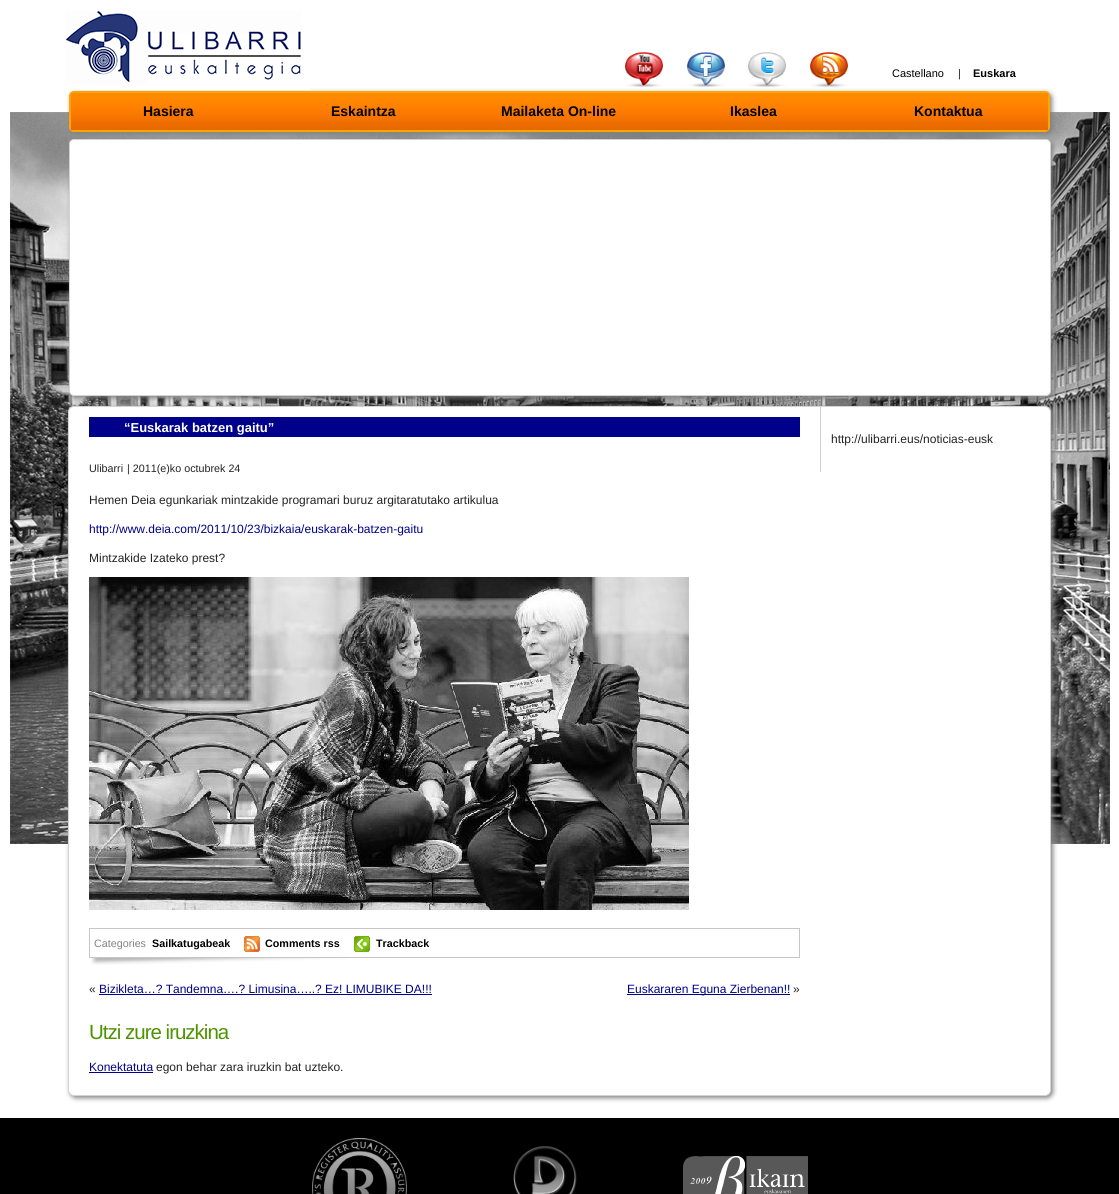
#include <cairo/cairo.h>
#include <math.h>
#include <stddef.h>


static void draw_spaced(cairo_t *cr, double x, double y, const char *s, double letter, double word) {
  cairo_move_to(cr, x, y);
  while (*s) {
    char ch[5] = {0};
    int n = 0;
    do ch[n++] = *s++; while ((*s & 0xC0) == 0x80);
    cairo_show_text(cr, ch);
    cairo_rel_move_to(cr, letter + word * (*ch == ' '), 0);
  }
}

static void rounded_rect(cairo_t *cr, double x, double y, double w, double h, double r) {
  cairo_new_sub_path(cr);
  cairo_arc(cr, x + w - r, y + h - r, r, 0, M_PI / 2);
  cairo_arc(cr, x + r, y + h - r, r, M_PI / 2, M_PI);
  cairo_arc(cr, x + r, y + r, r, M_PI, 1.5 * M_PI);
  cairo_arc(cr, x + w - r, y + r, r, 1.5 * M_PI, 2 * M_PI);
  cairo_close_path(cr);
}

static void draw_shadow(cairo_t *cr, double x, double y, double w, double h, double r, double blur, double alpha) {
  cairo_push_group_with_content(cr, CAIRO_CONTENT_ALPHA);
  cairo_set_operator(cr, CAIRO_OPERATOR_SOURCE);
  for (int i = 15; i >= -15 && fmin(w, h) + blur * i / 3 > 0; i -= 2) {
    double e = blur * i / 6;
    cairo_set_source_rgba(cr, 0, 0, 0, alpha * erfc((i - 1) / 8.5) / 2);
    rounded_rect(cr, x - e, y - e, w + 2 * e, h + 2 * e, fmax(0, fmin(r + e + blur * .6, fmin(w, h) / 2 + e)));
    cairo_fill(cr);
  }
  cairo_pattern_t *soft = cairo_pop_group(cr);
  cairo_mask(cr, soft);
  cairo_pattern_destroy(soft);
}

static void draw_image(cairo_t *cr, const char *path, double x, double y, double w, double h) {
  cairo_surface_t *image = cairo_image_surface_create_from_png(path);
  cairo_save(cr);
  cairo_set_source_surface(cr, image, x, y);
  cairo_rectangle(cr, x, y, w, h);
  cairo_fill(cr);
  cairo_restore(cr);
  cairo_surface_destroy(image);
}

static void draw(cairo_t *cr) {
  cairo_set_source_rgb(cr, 1, 1, 1);
  cairo_paint(cr);
  draw_image(cr, "images/1.png", 10, 112, 1100, 732);
  cairo_set_source_rgb(cr, 128 / 255.0, 128 / 255.0, 128 / 255.0);
  draw_shadow(cr, 71, 93, 981, 41, 5, 2.5, 1);
  draw_image(cr, "images/2.png", 65, 11, 245, 79);
  draw_image(cr, "images/3.png", 625, 52, 38, 35);
  draw_image(cr, "images/4.png", 687, 52, 38, 35);
  draw_image(cr, "images/5.png", 748, 52, 38, 35);
  draw_image(cr, "images/6.png", 810, 52, 38, 35);
  rounded_rect(cr, 70, 92, 979, 39, 4);
  cairo_set_source_rgb(cr, 1, 165 / 255.0, 0);
  cairo_stroke(cr);
  draw_image(cr, "images/7.png", 71, 93, 977, 37);
  cairo_set_source_rgb(cr, 128 / 255.0, 128 / 255.0, 128 / 255.0);
  draw_shadow(cr, 71, 141, 982, 257, 5, 2.5, 1);
  cairo_set_source_rgb(cr, 1, 1, 1);
  rounded_rect(cr, 69.5, 139.5, 981, 256, 4.5);
  cairo_fill_preserve(cr);
  cairo_set_source_rgb(cr, 211 / 255.0, 211 / 255.0, 211 / 255.0);
  cairo_set_line_width(cr, 1);
  cairo_stroke(cr);
  cairo_set_source_rgb(cr, 128 / 255.0, 128 / 255.0, 128 / 255.0);
  draw_shadow(cr, 70, 408, 983, 690, 6, 2.5, 1);
  cairo_set_source_rgb(cr, 1, 1, 1);
  rounded_rect(cr, 68.5, 406.5, 982, 689, 5.5);
  cairo_fill_preserve(cr);
  cairo_set_source_rgb(cr, 211 / 255.0, 211 / 255.0, 211 / 255.0);
  cairo_stroke(cr);
  cairo_set_source_rgb(cr, 0, 0, 139 / 255.0);
  cairo_rectangle(cr, 89, 417, 711, 20);
  cairo_fill(cr);
  draw_image(cr, "images/8.png", 89, 577, 600, 333);
  draw_image(cr, "images/9.png", 91, 958, 256, 7);
  cairo_rectangle(cr, 89.5, 928.5, 710, 29);
  cairo_set_source_rgb(cr, 198 / 255.0, 198 / 255.0, 198 / 255.0);
  cairo_stroke(cr);
  draw_image(cr, "images/10.png", 244, 936, 16, 16);
  draw_image(cr, "images/11.png", 354, 936, 16, 16);
  cairo_set_source_rgb(cr, 0, 0, 139 / 255.0);
  cairo_rectangle(cr, 99, 994, 333, 1);
  cairo_fill(cr);
  cairo_rectangle(cr, 627, 994, 163, 1);
  cairo_fill(cr);
  cairo_rectangle(cr, 89, 1072, 64, 1);
  cairo_fill(cr);
  cairo_set_source_rgb(cr, 208 / 255.0, 208 / 255.0, 208 / 255.0);
  cairo_rectangle(cr, 820, 407, 1, 65);
  cairo_fill(cr);
  cairo_set_source_rgb(cr, 0, 0, 0);
  cairo_rectangle(cr, 0, 1118, 1119, 76);
  cairo_fill(cr);
  draw_image(cr, "images/12.png", 312, 1138, 95, 56);
  draw_image(cr, "images/13.png", 513, 1146, 64, 48);
  draw_image(cr, "images/14.png", 683, 1156, 125, 38);
  cairo_select_font_face(cr, "Liberation Sans", CAIRO_FONT_SLANT_NORMAL, CAIRO_FONT_WEIGHT_NORMAL);
  cairo_set_font_size(cr, 11);
  cairo_move_to(cr, 892, 77);
  cairo_show_text(cr, "Castellano");
  cairo_set_source_rgb(cr, 35 / 255.0, 35 / 255.0, 35 / 255.0);
  cairo_move_to(cr, 958, 77);
  cairo_show_text(cr, "|");
  cairo_select_font_face(cr, "Liberation Sans", CAIRO_FONT_SLANT_NORMAL, CAIRO_FONT_WEIGHT_BOLD);
  cairo_set_source_rgb(cr, 0, 0, 0);
  cairo_move_to(cr, 973, 77);
  cairo_show_text(cr, "Euskara");
  cairo_set_font_size(cr, 14);
  cairo_move_to(cr, 143, 116);
  cairo_show_text(cr, "Hasiera");
  cairo_move_to(cr, 331, 116);
  cairo_show_text(cr, "Eskaintza");
  cairo_move_to(cr, 501, 116);
  cairo_show_text(cr, "Mailaketa On-line");
  cairo_move_to(cr, 730, 116);
  cairo_show_text(cr, "Ikaslea");
  cairo_move_to(cr, 914, 116);
  cairo_show_text(cr, "Kontaktua");
  cairo_set_font_size(cr, 13);
  cairo_set_source_rgb(cr, 1, 1, 1);
  cairo_move_to(cr, 124, 432);
  cairo_show_text(cr, "“Euskarak batzen gaitu”");
  cairo_select_font_face(cr, "Liberation Sans", CAIRO_FONT_SLANT_NORMAL, CAIRO_FONT_WEIGHT_NORMAL);
  cairo_set_font_size(cr, 10.75);
  cairo_set_source_rgb(cr, 35 / 255.0, 35 / 255.0, 35 / 255.0);
  cairo_move_to(cr, 89, 472);
  cairo_show_text(cr, "Ulibarri");
  cairo_move_to(cr, 127, 472);
  cairo_show_text(cr, "| 2011(e)ko octubrek 24");
  cairo_set_font_size(cr, 12);
  cairo_move_to(cr, 89, 504);
  cairo_show_text(cr, "Hemen Deia egunkariak mintzakide programari buruz argitaratutako artikulua");
  cairo_set_source_rgb(cr, 0, 0, 139 / 255.0);
  cairo_move_to(cr, 89, 533);
  cairo_show_text(cr, "http://www.deia.com/2011/10/23/bizkaia/euskarak-batzen-gaitu");
  cairo_set_source_rgb(cr, 35 / 255.0, 35 / 255.0, 35 / 255.0);
  cairo_move_to(cr, 89, 562);
  cairo_show_text(cr, "Mintzakide Izateko prest?");
  cairo_set_font_size(cr, 10.75);
  cairo_set_source_rgb(cr, 130 / 255.0, 130 / 255.0, 130 / 255.0);
  cairo_move_to(cr, 94, 947);
  cairo_show_text(cr, "Categories");
  cairo_select_font_face(cr, "Liberation Sans", CAIRO_FONT_SLANT_NORMAL, CAIRO_FONT_WEIGHT_BOLD);
  cairo_set_source_rgb(cr, 0, 0, 0);
  cairo_move_to(cr, 152, 947);
  cairo_show_text(cr, "Sailkatugabeak");
  cairo_move_to(cr, 265, 947);
  cairo_show_text(cr, "Comments rss");
  cairo_move_to(cr, 376, 947);
  cairo_show_text(cr, "Trackback");
  cairo_select_font_face(cr, "Liberation Sans", CAIRO_FONT_SLANT_NORMAL, CAIRO_FONT_WEIGHT_NORMAL);
  cairo_set_font_size(cr, 12);
  cairo_set_source_rgb(cr, 35 / 255.0, 35 / 255.0, 35 / 255.0);
  cairo_move_to(cr, 89, 993);
  cairo_show_text(cr, "«");
  cairo_set_source_rgb(cr, 0, 0, 139 / 255.0);
  cairo_move_to(cr, 99, 993);
  cairo_show_text(cr, "Bizikleta…? Tandemna….? Limusina…..? Ez! LIMUBIKE DA!!!");
  cairo_move_to(cr, 627, 993);
  cairo_show_text(cr, "Euskararen Eguna Zierbenan!!");
  cairo_set_source_rgb(cr, 35 / 255.0, 35 / 255.0, 35 / 255.0);
  cairo_move_to(cr, 793, 993);
  cairo_show_text(cr, "»");
  cairo_set_font_size(cr, 20.5);
  cairo_set_source_rgb(cr, 77 / 255.0, 147 / 255.0, 1 / 255.0);
  draw_spaced(cr, 89, 1039, "Utzi zure iruzkina", -1, 0);
  cairo_set_font_size(cr, 12);
  cairo_set_source_rgb(cr, 0, 0, 139 / 255.0);
  cairo_move_to(cr, 89, 1071);
  cairo_show_text(cr, "Konektatuta");
  cairo_set_source_rgb(cr, 35 / 255.0, 35 / 255.0, 35 / 255.0);
  cairo_move_to(cr, 156, 1071);
  cairo_show_text(cr, "egon behar zara iruzkin bat uzteko.");
  cairo_move_to(cr, 831, 443);
  cairo_show_text(cr, "http://ulibarri.eus/noticias-eusk");
}

int main(void) {
  cairo_surface_t *surface = cairo_image_surface_create(CAIRO_FORMAT_RGB24, 1119, 1194);
  cairo_t *cr = cairo_create(surface);
  cairo_font_options_t *options = cairo_font_options_create();
  cairo_font_options_set_hint_metrics(options, CAIRO_HINT_METRICS_OFF);
  cairo_font_options_set_hint_style(options, CAIRO_HINT_STYLE_NONE);
  cairo_set_font_options(cr, options);
  cairo_set_miter_limit(cr, 4);
  draw(cr);
  cairo_surface_write_to_png(surface, "out.png");
  cairo_font_options_destroy(options);
  cairo_destroy(cr);
  cairo_surface_destroy(surface);
  return 0;
}
